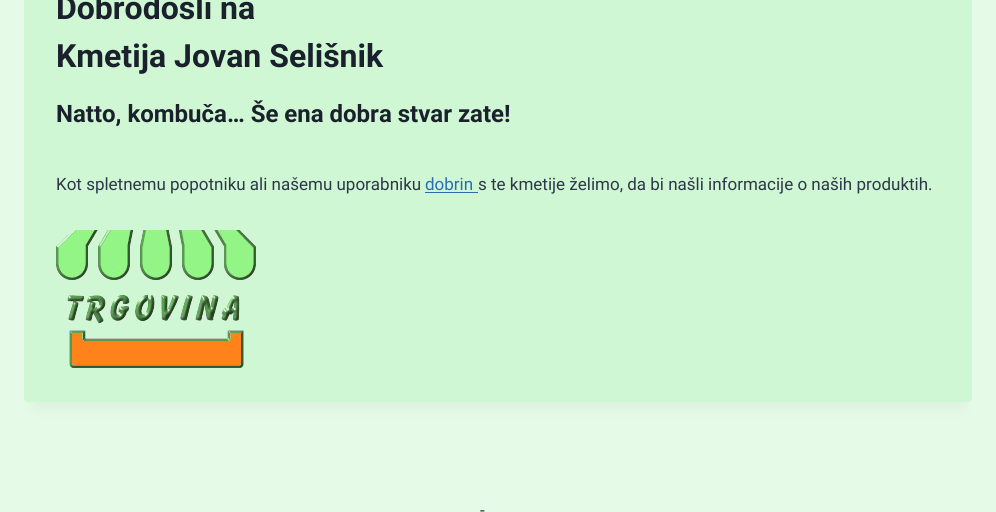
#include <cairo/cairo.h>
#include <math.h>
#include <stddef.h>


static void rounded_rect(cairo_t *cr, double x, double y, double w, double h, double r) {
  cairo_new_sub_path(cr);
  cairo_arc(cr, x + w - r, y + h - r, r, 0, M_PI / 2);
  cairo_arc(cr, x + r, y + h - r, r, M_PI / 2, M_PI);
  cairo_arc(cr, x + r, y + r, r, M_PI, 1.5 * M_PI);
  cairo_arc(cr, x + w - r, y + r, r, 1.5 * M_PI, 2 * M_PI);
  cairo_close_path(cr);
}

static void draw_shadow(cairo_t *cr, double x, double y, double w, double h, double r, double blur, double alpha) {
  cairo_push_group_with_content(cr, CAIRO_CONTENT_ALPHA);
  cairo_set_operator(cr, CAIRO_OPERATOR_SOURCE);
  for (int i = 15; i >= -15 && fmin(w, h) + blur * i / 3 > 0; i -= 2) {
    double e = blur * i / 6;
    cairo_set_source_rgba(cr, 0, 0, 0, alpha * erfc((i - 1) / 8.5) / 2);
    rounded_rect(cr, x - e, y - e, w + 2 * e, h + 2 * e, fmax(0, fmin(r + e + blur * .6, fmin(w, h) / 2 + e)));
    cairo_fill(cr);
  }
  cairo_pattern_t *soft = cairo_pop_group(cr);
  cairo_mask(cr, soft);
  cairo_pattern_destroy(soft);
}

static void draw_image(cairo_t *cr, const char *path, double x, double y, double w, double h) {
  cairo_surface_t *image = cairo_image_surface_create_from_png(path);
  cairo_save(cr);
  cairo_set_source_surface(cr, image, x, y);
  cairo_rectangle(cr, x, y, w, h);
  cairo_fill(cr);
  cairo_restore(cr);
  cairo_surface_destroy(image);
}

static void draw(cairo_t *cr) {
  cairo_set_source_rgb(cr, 229 / 255.0, 251 / 255.0, 232 / 255.0);
  cairo_paint(cr);
  cairo_set_source_rgb(cr, 0, 0, 0);
  draw_shadow(cr, 34, -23, 928, 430, 0, 7.5, 0.05);
  cairo_set_source_rgb(cr, 207 / 255.0, 247 / 255.0, 211 / 255.0);
  rounded_rect(cr, 24, -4, 948, 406, 4);
  cairo_fill(cr);
  cairo_set_source_rgb(cr, 43 / 255.0, 108 / 255.0, 176 / 255.0);
  cairo_rectangle(cr, 425, 192, 53, 1);
  cairo_fill(cr);
  draw_image(cr, "images/1.png", 56, 230, 200, 138);
  cairo_select_font_face(cr, "Roboto", CAIRO_FONT_SLANT_NORMAL, CAIRO_FONT_WEIGHT_BOLD);
  cairo_set_font_size(cr, 32);
  cairo_set_source_rgb(cr, 26 / 255.0, 32 / 255.0, 44 / 255.0);
  cairo_move_to(cr, 56, 19);
  cairo_show_text(cr, "Dobrodošli na");
  cairo_move_to(cr, 56, 67);
  cairo_show_text(cr, "Kmetija Jovan Selišnik");
  cairo_set_font_size(cr, 24);
  cairo_move_to(cr, 56, 122);
  cairo_show_text(cr, "Natto, kombuča… Še ena dobra stvar zate!");
  cairo_select_font_face(cr, "Roboto", CAIRO_FONT_SLANT_NORMAL, CAIRO_FONT_WEIGHT_NORMAL);
  cairo_set_font_size(cr, 17);
  cairo_set_source_rgb(cr, 45 / 255.0, 55 / 255.0, 72 / 255.0);
  cairo_move_to(cr, 56, 190);
  cairo_show_text(cr, "Kot spletnemu popotniku ali našemu uporabniku");
  cairo_set_source_rgb(cr, 43 / 255.0, 108 / 255.0, 176 / 255.0);
  cairo_move_to(cr, 425, 190);
  cairo_show_text(cr, "dobrin");
  cairo_set_source_rgb(cr, 45 / 255.0, 55 / 255.0, 72 / 255.0);
  cairo_move_to(cr, 478, 190);
  cairo_show_text(cr, "s te kmetije želimo, da bi našli informacije o naših produktih.");
  cairo_move_to(cr, 480, 516);
  cairo_show_text(cr, "-");
}

int main(void) {
  cairo_surface_t *surface = cairo_image_surface_create(CAIRO_FORMAT_RGB24, 996, 512);
  cairo_t *cr = cairo_create(surface);
  cairo_font_options_t *options = cairo_font_options_create();
  cairo_font_options_set_hint_metrics(options, CAIRO_HINT_METRICS_OFF);
  cairo_font_options_set_hint_style(options, CAIRO_HINT_STYLE_NONE);
  cairo_set_font_options(cr, options);
  cairo_set_miter_limit(cr, 4);
  draw(cr);
  cairo_surface_write_to_png(surface, "out.png");
  cairo_font_options_destroy(options);
  cairo_destroy(cr);
  cairo_surface_destroy(surface);
  return 0;
}
